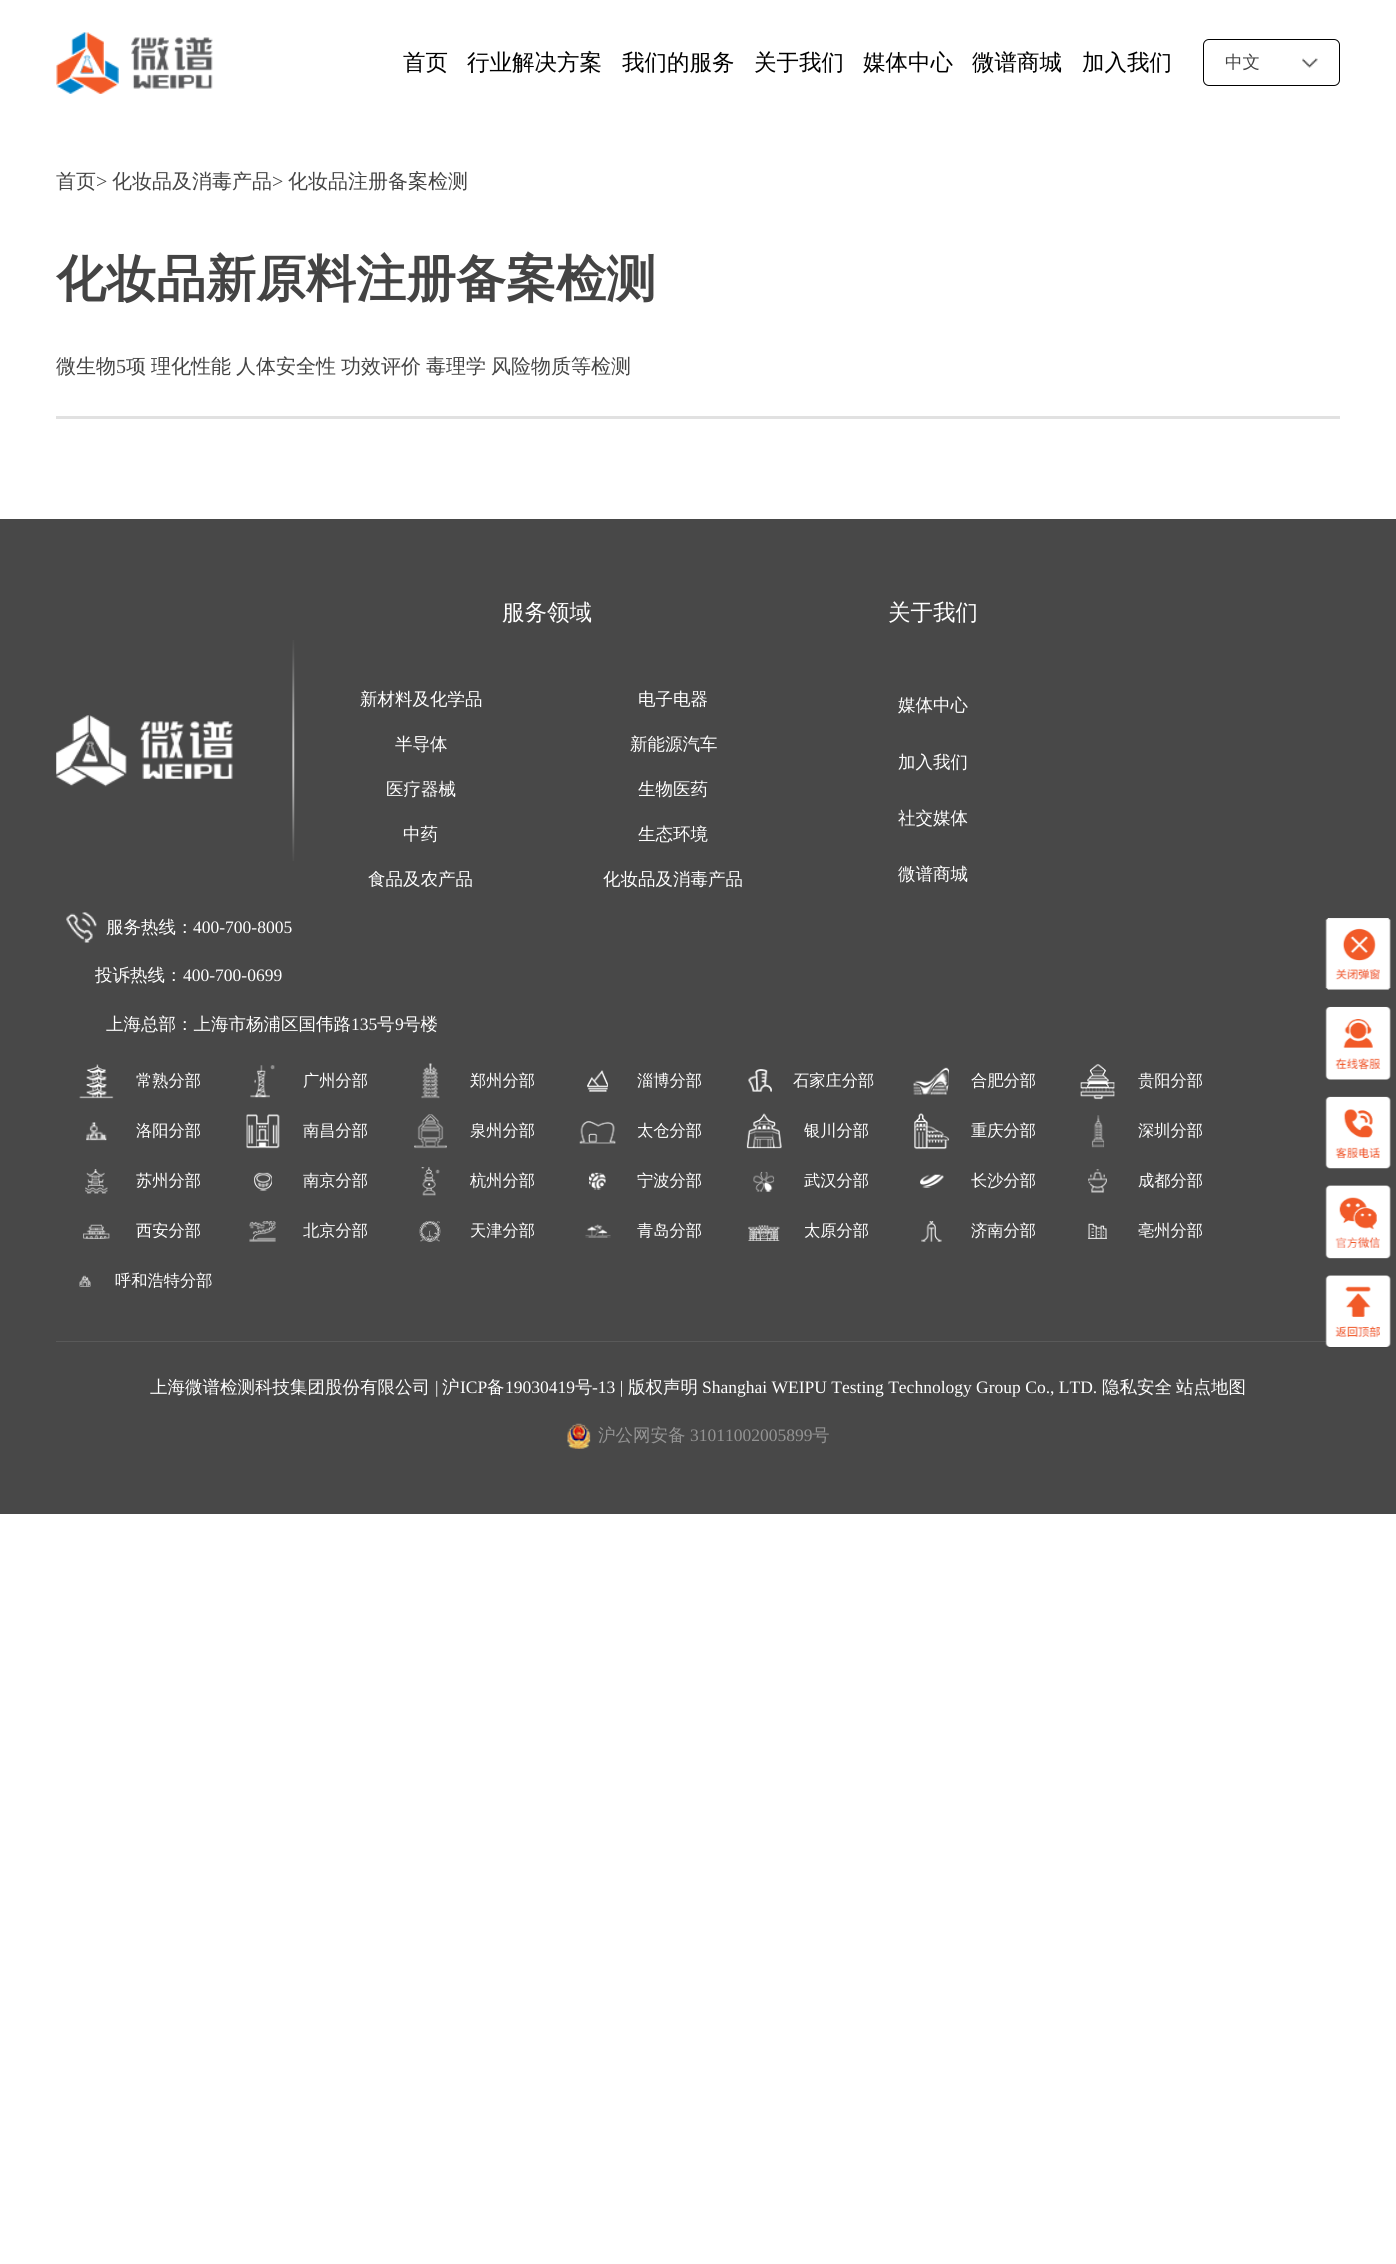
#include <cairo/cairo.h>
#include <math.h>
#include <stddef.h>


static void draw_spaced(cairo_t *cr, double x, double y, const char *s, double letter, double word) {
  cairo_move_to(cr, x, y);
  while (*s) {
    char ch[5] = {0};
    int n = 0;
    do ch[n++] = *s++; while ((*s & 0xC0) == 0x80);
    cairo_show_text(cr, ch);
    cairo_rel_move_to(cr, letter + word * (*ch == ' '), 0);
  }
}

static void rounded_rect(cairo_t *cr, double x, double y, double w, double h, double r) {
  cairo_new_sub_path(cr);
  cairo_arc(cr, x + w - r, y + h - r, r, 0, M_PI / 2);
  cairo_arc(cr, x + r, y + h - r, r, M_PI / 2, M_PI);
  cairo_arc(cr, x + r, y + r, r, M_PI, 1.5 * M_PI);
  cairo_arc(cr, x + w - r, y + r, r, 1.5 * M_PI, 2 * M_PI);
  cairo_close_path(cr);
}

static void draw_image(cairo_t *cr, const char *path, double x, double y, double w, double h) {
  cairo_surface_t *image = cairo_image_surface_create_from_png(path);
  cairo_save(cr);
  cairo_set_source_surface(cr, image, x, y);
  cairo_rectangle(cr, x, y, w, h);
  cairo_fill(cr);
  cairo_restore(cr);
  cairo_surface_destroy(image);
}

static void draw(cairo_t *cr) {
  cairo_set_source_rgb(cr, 1, 1, 1);
  cairo_paint(cr);
  draw_image(cr, "images/1.png", 56, 32, 157, 62);
  rounded_rect(cr, 1203.5, 39.5, 136, 46, 5.5);
  cairo_set_source_rgb(cr, 0, 0, 0);
  cairo_set_line_width(cr, 1);
  cairo_stroke(cr);
  draw_image(cr, "images/2.png", 1302, 58, 16, 10);
  cairo_set_source_rgb(cr, 225 / 255.0, 225 / 255.0, 225 / 255.0);
  cairo_rectangle(cr, 56, 416, 1284, 3);
  cairo_fill(cr);
  cairo_set_source_rgb(cr, 72 / 255.0, 72 / 255.0, 72 / 255.0);
  cairo_rectangle(cr, 0, 519, 1396, 995);
  cairo_fill(cr);
  draw_image(cr, "images/3.png", 56, 715, 177, 72);
  draw_image(cr, "images/4.png", 292, 640, 3, 221);
  draw_image(cr, "images/5.png", 66, 912, 31, 31);
  draw_image(cr, "images/6.png", 79, 1064, 35, 35);
  draw_image(cr, "images/7.png", 250, 1065, 25, 33);
  draw_image(cr, "images/8.png", 421, 1063, 19, 36);
  draw_image(cr, "images/9.png", 587, 1070, 21, 22);
  draw_image(cr, "images/10.png", 748, 1069, 24, 23);
  draw_image(cr, "images/11.png", 913, 1067, 36, 28);
  draw_image(cr, "images/12.png", 1080, 1064, 35, 36);
  draw_image(cr, "images/13.png", 86, 1122, 21, 19);
  draw_image(cr, "images/14.png", 246, 1114, 34, 35);
  draw_image(cr, "images/15.png", 414, 1114, 33, 35);
  draw_image(cr, "images/16.png", 579, 1121, 37, 23);
  draw_image(cr, "images/17.png", 746, 1113, 36, 36);
  draw_image(cr, "images/18.png", 914, 1113, 36, 37);
  draw_image(cr, "images/19.png", 1091, 1115, 14, 33);
  draw_image(cr, "images/20.png", 85, 1169, 23, 25);
  draw_image(cr, "images/21.png", 254, 1172, 18, 19);
  draw_image(cr, "images/22.png", 421, 1167, 19, 29);
  draw_image(cr, "images/23.png", 589, 1172, 17, 18);
  draw_image(cr, "images/24.png", 753, 1171, 22, 21);
  draw_image(cr, "images/25.png", 920, 1174, 24, 14);
  draw_image(cr, "images/26.png", 1088, 1169, 19, 24);
  draw_image(cr, "images/27.png", 83, 1224, 27, 15);
  draw_image(cr, "images/28.png", 249, 1221, 27, 21);
  draw_image(cr, "images/29.png", 419, 1221, 22, 21);
  draw_image(cr, "images/30.png", 585, 1224, 26, 14);
  draw_image(cr, "images/31.png", 748, 1225, 32, 16);
  draw_image(cr, "images/32.png", 921, 1221, 21, 21);
  draw_image(cr, "images/33.png", 1088, 1223, 19, 16);
  draw_image(cr, "images/34.png", 79, 1275, 12, 12);
  cairo_set_source_rgb(cr, 89 / 255.0, 89 / 255.0, 89 / 255.0);
  cairo_rectangle(cr, 56, 1341, 1271, 1);
  cairo_fill(cr);
  draw_image(cr, "images/35.png", 567, 1423, 24, 26);
  draw_image(cr, "images/36.png", 1325, 918, 66, 72);
  draw_image(cr, "images/37.png", 1325, 1006, 66, 74);
  draw_image(cr, "images/38.png", 1325, 1096, 66, 73);
  draw_image(cr, "images/39.png", 1325, 1185, 66, 74);
  draw_image(cr, "images/40.png", 1325, 1275, 66, 73);
  cairo_select_font_face(cr, "WenQuanYi Zen Hei Medium", CAIRO_FONT_SLANT_NORMAL, CAIRO_FONT_WEIGHT_NORMAL);
  cairo_set_font_size(cr, 22.5);
  cairo_set_source_rgb(cr, 0, 0, 0);
  cairo_move_to(cr, 403, 70);
  cairo_show_text(cr, "首页");
  cairo_move_to(cr, 467, 70);
  cairo_show_text(cr, "行业解决方案");
  cairo_move_to(cr, 622, 70);
  cairo_show_text(cr, "我们的服务");
  cairo_move_to(cr, 754, 70);
  cairo_show_text(cr, "关于我们");
  cairo_move_to(cr, 863, 70);
  cairo_show_text(cr, "媒体中心");
  cairo_move_to(cr, 972, 70);
  cairo_show_text(cr, "微谱商城");
  cairo_move_to(cr, 1082, 70);
  cairo_show_text(cr, "加入我们");
  cairo_set_font_size(cr, 17.5);
  cairo_set_source_rgb(cr, 68 / 255.0, 68 / 255.0, 68 / 255.0);
  cairo_move_to(cr, 1225, 68);
  cairo_show_text(cr, "中文");
  cairo_set_font_size(cr, 20);
  cairo_move_to(cr, 56, 188);
  cairo_show_text(cr, "首页");
  cairo_select_font_face(cr, "Liberation Serif", CAIRO_FONT_SLANT_NORMAL, CAIRO_FONT_WEIGHT_NORMAL);
  cairo_move_to(cr, 96, 188);
  cairo_show_text(cr, ">");
  cairo_select_font_face(cr, "WenQuanYi Zen Hei Medium", CAIRO_FONT_SLANT_NORMAL, CAIRO_FONT_WEIGHT_NORMAL);
  cairo_move_to(cr, 112, 188);
  cairo_show_text(cr, "化妆品及消毒产品");
  cairo_select_font_face(cr, "Liberation Serif", CAIRO_FONT_SLANT_NORMAL, CAIRO_FONT_WEIGHT_NORMAL);
  cairo_move_to(cr, 272, 188);
  cairo_show_text(cr, ">");
  cairo_select_font_face(cr, "WenQuanYi Zen Hei Medium", CAIRO_FONT_SLANT_NORMAL, CAIRO_FONT_WEIGHT_NORMAL);
  cairo_move_to(cr, 288, 188);
  cairo_show_text(cr, "化妆品注册备案检测");
  cairo_select_font_face(cr, "WenQuanYi Zen Hei", CAIRO_FONT_SLANT_NORMAL, CAIRO_FONT_WEIGHT_BOLD);
  cairo_set_font_size(cr, 50);
  cairo_move_to(cr, 56, 296);
  cairo_show_text(cr, "化妆品新原料注册备案检测");
  cairo_select_font_face(cr, "WenQuanYi Zen Hei Medium", CAIRO_FONT_SLANT_NORMAL, CAIRO_FONT_WEIGHT_NORMAL);
  cairo_set_font_size(cr, 20);
  cairo_move_to(cr, 56, 373);
  cairo_show_text(cr, "微生物");
  cairo_select_font_face(cr, "Liberation Serif", CAIRO_FONT_SLANT_NORMAL, CAIRO_FONT_WEIGHT_NORMAL);
  cairo_move_to(cr, 116, 373);
  cairo_show_text(cr, "5");
  cairo_select_font_face(cr, "WenQuanYi Zen Hei Medium", CAIRO_FONT_SLANT_NORMAL, CAIRO_FONT_WEIGHT_NORMAL);
  draw_spaced(cr, 126, 373, "项 理化性能 人体安全性 功效评价 毒理学 风险物质等检测", 0, -1);
  cairo_set_font_size(cr, 22.5);
  cairo_set_source_rgb(cr, 1, 1, 1);
  cairo_move_to(cr, 502, 620);
  cairo_show_text(cr, "服务领域");
  cairo_set_font_size(cr, 17.5);
  cairo_move_to(cr, 360, 705);
  cairo_show_text(cr, "新材料及化学品");
  cairo_move_to(cr, 638, 705);
  cairo_show_text(cr, "电子电器");
  cairo_move_to(cr, 395, 750);
  cairo_show_text(cr, "半导体");
  cairo_move_to(cr, 630, 750);
  cairo_show_text(cr, "新能源汽车");
  cairo_move_to(cr, 386, 795);
  cairo_show_text(cr, "医疗器械");
  cairo_move_to(cr, 638, 795);
  cairo_show_text(cr, "生物医药");
  cairo_move_to(cr, 403, 840);
  cairo_show_text(cr, "中药");
  cairo_move_to(cr, 638, 840);
  cairo_show_text(cr, "生态环境");
  cairo_move_to(cr, 368, 885);
  cairo_show_text(cr, "食品及农产品");
  cairo_move_to(cr, 603, 885);
  cairo_show_text(cr, "化妆品及消毒产品");
  cairo_set_font_size(cr, 22.5);
  cairo_move_to(cr, 888, 620);
  cairo_show_text(cr, "关于我们");
  cairo_set_font_size(cr, 17.5);
  cairo_move_to(cr, 898, 711);
  cairo_show_text(cr, "媒体中心");
  cairo_move_to(cr, 898, 768);
  cairo_show_text(cr, "加入我们");
  cairo_move_to(cr, 898, 824);
  cairo_show_text(cr, "社交媒体");
  cairo_move_to(cr, 898, 880);
  cairo_show_text(cr, "微谱商城");
  cairo_move_to(cr, 106, 933);
  cairo_show_text(cr, "服务热线：");
  cairo_select_font_face(cr, "Liberation Serif", CAIRO_FONT_SLANT_NORMAL, CAIRO_FONT_WEIGHT_NORMAL);
  cairo_move_to(cr, 193, 933);
  cairo_show_text(cr, "400-700-8005");
  cairo_select_font_face(cr, "WenQuanYi Zen Hei Medium", CAIRO_FONT_SLANT_NORMAL, CAIRO_FONT_WEIGHT_NORMAL);
  cairo_move_to(cr, 95, 981);
  cairo_show_text(cr, "投诉热线：");
  cairo_select_font_face(cr, "Liberation Serif", CAIRO_FONT_SLANT_NORMAL, CAIRO_FONT_WEIGHT_NORMAL);
  cairo_move_to(cr, 183, 981);
  cairo_show_text(cr, "400-700-0699");
  cairo_select_font_face(cr, "WenQuanYi Zen Hei Medium", CAIRO_FONT_SLANT_NORMAL, CAIRO_FONT_WEIGHT_NORMAL);
  cairo_move_to(cr, 106, 1030);
  cairo_show_text(cr, "上海总部：上海市杨浦区国伟路");
  cairo_select_font_face(cr, "Liberation Serif", CAIRO_FONT_SLANT_NORMAL, CAIRO_FONT_WEIGHT_NORMAL);
  cairo_move_to(cr, 351, 1030);
  cairo_show_text(cr, "135");
  cairo_select_font_face(cr, "WenQuanYi Zen Hei Medium", CAIRO_FONT_SLANT_NORMAL, CAIRO_FONT_WEIGHT_NORMAL);
  cairo_move_to(cr, 377, 1030);
  cairo_show_text(cr, "号");
  cairo_select_font_face(cr, "Liberation Serif", CAIRO_FONT_SLANT_NORMAL, CAIRO_FONT_WEIGHT_NORMAL);
  cairo_move_to(cr, 395, 1030);
  cairo_show_text(cr, "9");
  cairo_select_font_face(cr, "WenQuanYi Zen Hei Medium", CAIRO_FONT_SLANT_NORMAL, CAIRO_FONT_WEIGHT_NORMAL);
  cairo_move_to(cr, 403, 1030);
  cairo_show_text(cr, "号楼");
  cairo_set_font_size(cr, 16.25);
  cairo_move_to(cr, 136, 1086);
  cairo_show_text(cr, "常熟分部");
  cairo_move_to(cr, 303, 1086);
  cairo_show_text(cr, "广州分部");
  cairo_move_to(cr, 470, 1086);
  cairo_show_text(cr, "郑州分部");
  cairo_move_to(cr, 637, 1086);
  cairo_show_text(cr, "淄博分部");
  cairo_move_to(cr, 793, 1086);
  cairo_show_text(cr, "石家庄分部");
  cairo_move_to(cr, 971, 1086);
  cairo_show_text(cr, "合肥分部");
  cairo_move_to(cr, 1138, 1086);
  cairo_show_text(cr, "贵阳分部");
  cairo_move_to(cr, 136, 1136);
  cairo_show_text(cr, "洛阳分部");
  cairo_move_to(cr, 303, 1136);
  cairo_show_text(cr, "南昌分部");
  cairo_move_to(cr, 470, 1136);
  cairo_show_text(cr, "泉州分部");
  cairo_move_to(cr, 637, 1136);
  cairo_show_text(cr, "太仓分部");
  cairo_move_to(cr, 804, 1136);
  cairo_show_text(cr, "银川分部");
  cairo_move_to(cr, 971, 1136);
  cairo_show_text(cr, "重庆分部");
  cairo_move_to(cr, 1138, 1136);
  cairo_show_text(cr, "深圳分部");
  cairo_move_to(cr, 136, 1186);
  cairo_show_text(cr, "苏州分部");
  cairo_move_to(cr, 303, 1186);
  cairo_show_text(cr, "南京分部");
  cairo_move_to(cr, 470, 1186);
  cairo_show_text(cr, "杭州分部");
  cairo_move_to(cr, 637, 1186);
  cairo_show_text(cr, "宁波分部");
  cairo_move_to(cr, 804, 1186);
  cairo_show_text(cr, "武汉分部");
  cairo_move_to(cr, 971, 1186);
  cairo_show_text(cr, "长沙分部");
  cairo_move_to(cr, 1138, 1186);
  cairo_show_text(cr, "成都分部");
  cairo_move_to(cr, 136, 1236);
  cairo_show_text(cr, "西安分部");
  cairo_move_to(cr, 303, 1236);
  cairo_show_text(cr, "北京分部");
  cairo_move_to(cr, 470, 1236);
  cairo_show_text(cr, "天津分部");
  cairo_move_to(cr, 637, 1236);
  cairo_show_text(cr, "青岛分部");
  cairo_move_to(cr, 804, 1236);
  cairo_show_text(cr, "太原分部");
  cairo_move_to(cr, 971, 1236);
  cairo_show_text(cr, "济南分部");
  cairo_move_to(cr, 1138, 1236);
  cairo_show_text(cr, "亳州分部");
  cairo_move_to(cr, 115, 1286);
  cairo_show_text(cr, "呼和浩特分部");
  cairo_set_font_size(cr, 17.5);
  cairo_move_to(cr, 150, 1393);
  cairo_show_text(cr, "上海微谱检测科技集团股份有限公司");
  cairo_select_font_face(cr, "Liberation Serif", CAIRO_FONT_SLANT_NORMAL, CAIRO_FONT_WEIGHT_NORMAL);
  cairo_move_to(cr, 435, 1393);
  cairo_show_text(cr, "|");
  cairo_select_font_face(cr, "WenQuanYi Zen Hei Medium", CAIRO_FONT_SLANT_NORMAL, CAIRO_FONT_WEIGHT_NORMAL);
  cairo_move_to(cr, 442, 1393);
  cairo_show_text(cr, "沪");
  cairo_select_font_face(cr, "Liberation Serif", CAIRO_FONT_SLANT_NORMAL, CAIRO_FONT_WEIGHT_NORMAL);
  cairo_move_to(cr, 460, 1393);
  cairo_show_text(cr, "ICP");
  cairo_select_font_face(cr, "WenQuanYi Zen Hei Medium", CAIRO_FONT_SLANT_NORMAL, CAIRO_FONT_WEIGHT_NORMAL);
  cairo_move_to(cr, 487, 1393);
  cairo_show_text(cr, "备");
  cairo_select_font_face(cr, "Liberation Serif", CAIRO_FONT_SLANT_NORMAL, CAIRO_FONT_WEIGHT_NORMAL);
  cairo_move_to(cr, 505, 1393);
  cairo_show_text(cr, "19030419");
  cairo_select_font_face(cr, "WenQuanYi Zen Hei Medium", CAIRO_FONT_SLANT_NORMAL, CAIRO_FONT_WEIGHT_NORMAL);
  cairo_move_to(cr, 575, 1393);
  cairo_show_text(cr, "号");
  cairo_select_font_face(cr, "Liberation Serif", CAIRO_FONT_SLANT_NORMAL, CAIRO_FONT_WEIGHT_NORMAL);
  cairo_move_to(cr, 592, 1393);
  cairo_show_text(cr, "-13 |");
  cairo_select_font_face(cr, "WenQuanYi Zen Hei Medium", CAIRO_FONT_SLANT_NORMAL, CAIRO_FONT_WEIGHT_NORMAL);
  cairo_move_to(cr, 628, 1393);
  cairo_show_text(cr, "版权声明");
  cairo_select_font_face(cr, "Liberation Serif", CAIRO_FONT_SLANT_NORMAL, CAIRO_FONT_WEIGHT_NORMAL);
  cairo_move_to(cr, 702, 1393);
  cairo_show_text(cr, "Shanghai WEIPU Testing Technology Group Co., LTD.");
  cairo_select_font_face(cr, "WenQuanYi Zen Hei Medium", CAIRO_FONT_SLANT_NORMAL, CAIRO_FONT_WEIGHT_NORMAL);
  cairo_move_to(cr, 1102, 1393);
  cairo_show_text(cr, "隐私安全");
  cairo_move_to(cr, 1176, 1393);
  cairo_show_text(cr, "站点地图");
  cairo_set_source_rgb(cr, 147 / 255.0, 147 / 255.0, 147 / 255.0);
  cairo_move_to(cr, 598, 1441);
  cairo_show_text(cr, "沪公网安备");
  cairo_select_font_face(cr, "Liberation Serif", CAIRO_FONT_SLANT_NORMAL, CAIRO_FONT_WEIGHT_NORMAL);
  cairo_move_to(cr, 690, 1441);
  cairo_show_text(cr, "31011002005899");
  cairo_select_font_face(cr, "WenQuanYi Zen Hei Medium", CAIRO_FONT_SLANT_NORMAL, CAIRO_FONT_WEIGHT_NORMAL);
  cairo_move_to(cr, 812, 1441);
  cairo_show_text(cr, "号");
}

int main(void) {
  cairo_surface_t *surface = cairo_image_surface_create(CAIRO_FORMAT_RGB24, 1396, 2264);
  cairo_t *cr = cairo_create(surface);
  cairo_font_options_t *options = cairo_font_options_create();
  cairo_font_options_set_hint_metrics(options, CAIRO_HINT_METRICS_OFF);
  cairo_font_options_set_hint_style(options, CAIRO_HINT_STYLE_NONE);
  cairo_set_font_options(cr, options);
  cairo_set_miter_limit(cr, 4);
  draw(cr);
  cairo_surface_write_to_png(surface, "out.png");
  cairo_font_options_destroy(options);
  cairo_destroy(cr);
  cairo_surface_destroy(surface);
  return 0;
}
